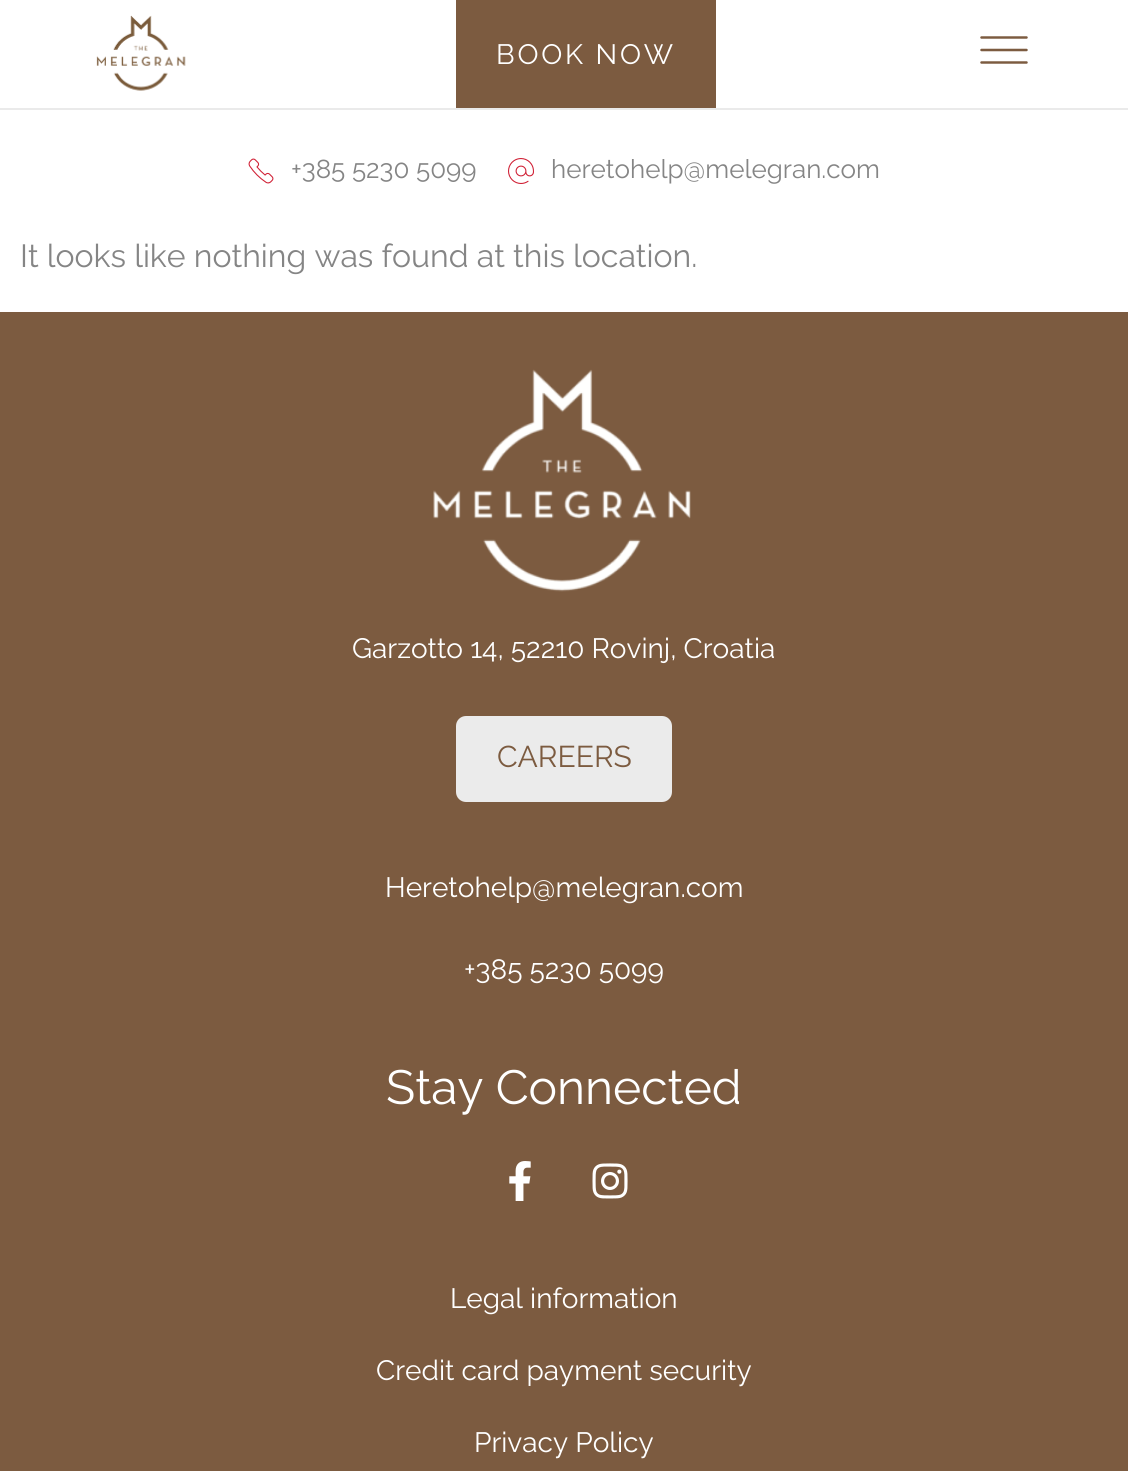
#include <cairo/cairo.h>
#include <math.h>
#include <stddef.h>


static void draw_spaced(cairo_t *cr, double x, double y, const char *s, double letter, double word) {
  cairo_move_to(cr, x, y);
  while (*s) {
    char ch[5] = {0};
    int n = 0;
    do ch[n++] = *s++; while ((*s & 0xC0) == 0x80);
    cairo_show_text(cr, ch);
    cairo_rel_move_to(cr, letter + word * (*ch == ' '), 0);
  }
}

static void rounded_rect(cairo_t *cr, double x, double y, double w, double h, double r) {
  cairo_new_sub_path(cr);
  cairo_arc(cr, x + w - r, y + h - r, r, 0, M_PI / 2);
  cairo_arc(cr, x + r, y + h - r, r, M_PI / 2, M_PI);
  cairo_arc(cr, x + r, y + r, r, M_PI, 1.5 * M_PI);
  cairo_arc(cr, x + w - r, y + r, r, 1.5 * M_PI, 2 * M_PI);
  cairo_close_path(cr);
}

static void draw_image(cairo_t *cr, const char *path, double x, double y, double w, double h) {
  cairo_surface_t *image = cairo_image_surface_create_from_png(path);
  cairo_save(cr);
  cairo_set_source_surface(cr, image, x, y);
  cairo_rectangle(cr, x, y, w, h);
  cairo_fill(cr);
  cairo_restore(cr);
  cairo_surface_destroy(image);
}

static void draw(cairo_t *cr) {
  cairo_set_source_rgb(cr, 1, 1, 1);
  cairo_paint(cr);
  cairo_set_source_rgb(cr, 234 / 255.0, 234 / 255.0, 234 / 255.0);
  cairo_rectangle(cr, 0, 108, 1128, 2);
  cairo_fill(cr);
  draw_image(cr, "images/1.png", 96, 15, 90, 76);
  cairo_set_source_rgb(cr, 124 / 255.0, 91 / 255.0, 64 / 255.0);
  cairo_rectangle(cr, 456, 0, 260, 108);
  cairo_fill(cr);
  draw_image(cr, "images/2.png", 980, 36, 48, 28);
  draw_image(cr, "images/3.png", 248, 158, 26, 26);
  draw_image(cr, "images/4.png", 508, 158, 26, 26);
  cairo_rectangle(cr, 0, 312, 1128, 1159);
  cairo_fill(cr);
  draw_image(cr, "images/5.png", 433, 369, 258, 223);
  cairo_set_source_rgb(cr, 235 / 255.0, 235 / 255.0, 235 / 255.0);
  rounded_rect(cr, 456, 716, 216, 86, 10);
  cairo_fill(cr);
  draw_image(cr, "images/6.png", 509, 1161, 22, 40);
  draw_image(cr, "images/7.png", 592, 1163, 36, 36);
  cairo_select_font_face(cr, "Raleway", CAIRO_FONT_SLANT_NORMAL, CAIRO_FONT_WEIGHT_NORMAL);
  cairo_set_font_size(cr, 28);
  cairo_set_source_rgb(cr, 1, 1, 1);
  draw_spaced(cr, 496, 64, "BOOK NOW", 2.75, 0);
  cairo_set_font_size(cr, 26);
  cairo_set_source_rgb(cr, 133 / 255.0, 133 / 255.0, 133 / 255.0);
  cairo_move_to(cr, 291, 178);
  cairo_show_text(cr, "+385 5230 5099");
  cairo_move_to(cr, 551, 178);
  cairo_show_text(cr, "heretohelp@melegran.com");
  cairo_set_font_size(cr, 32);
  cairo_move_to(cr, 20, 267);
  cairo_show_text(cr, "It looks like nothing was found at this location.");
  cairo_set_font_size(cr, 28);
  cairo_set_source_rgb(cr, 1, 1, 1);
  cairo_move_to(cr, 352, 658);
  cairo_show_text(cr, "Garzotto 14, 52210 Rovinj, Croatia");
  cairo_set_font_size(cr, 30);
  cairo_set_source_rgb(cr, 124 / 255.0, 91 / 255.0, 64 / 255.0);
  cairo_move_to(cr, 497, 767);
  cairo_show_text(cr, "CAREERS");
  cairo_set_font_size(cr, 28);
  cairo_set_source_rgb(cr, 1, 1, 1);
  cairo_move_to(cr, 385, 897);
  cairo_show_text(cr, "Heretohelp@melegran.com");
  cairo_move_to(cr, 464, 979);
  cairo_show_text(cr, "+385 5230 5099");
  cairo_set_font_size(cr, 48);
  cairo_move_to(cr, 386, 1104);
  cairo_show_text(cr, "Stay Connected");
  cairo_set_font_size(cr, 28);
  cairo_move_to(cr, 450, 1308);
  cairo_show_text(cr, "Legal information");
  cairo_move_to(cr, 376, 1380);
  cairo_show_text(cr, "Credit card payment security");
  cairo_move_to(cr, 474, 1452);
  cairo_show_text(cr, "Privacy Policy");
}

int main(void) {
  cairo_surface_t *surface = cairo_image_surface_create(CAIRO_FORMAT_RGB24, 1128, 1471);
  cairo_t *cr = cairo_create(surface);
  cairo_font_options_t *options = cairo_font_options_create();
  cairo_font_options_set_hint_metrics(options, CAIRO_HINT_METRICS_OFF);
  cairo_font_options_set_hint_style(options, CAIRO_HINT_STYLE_NONE);
  cairo_set_font_options(cr, options);
  cairo_set_miter_limit(cr, 4);
  draw(cr);
  cairo_surface_write_to_png(surface, "out.png");
  cairo_font_options_destroy(options);
  cairo_destroy(cr);
  cairo_surface_destroy(surface);
  return 0;
}
